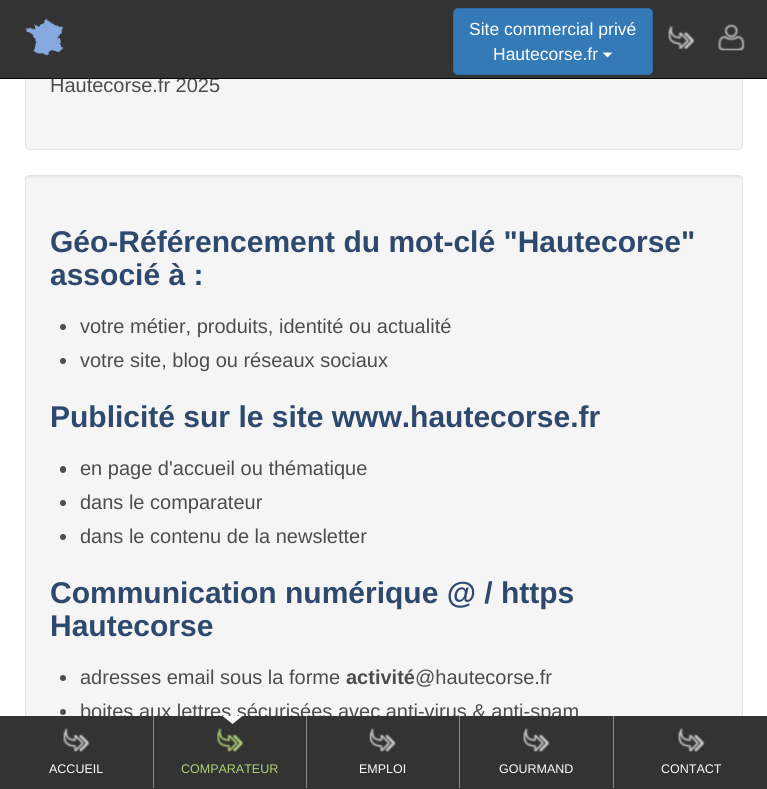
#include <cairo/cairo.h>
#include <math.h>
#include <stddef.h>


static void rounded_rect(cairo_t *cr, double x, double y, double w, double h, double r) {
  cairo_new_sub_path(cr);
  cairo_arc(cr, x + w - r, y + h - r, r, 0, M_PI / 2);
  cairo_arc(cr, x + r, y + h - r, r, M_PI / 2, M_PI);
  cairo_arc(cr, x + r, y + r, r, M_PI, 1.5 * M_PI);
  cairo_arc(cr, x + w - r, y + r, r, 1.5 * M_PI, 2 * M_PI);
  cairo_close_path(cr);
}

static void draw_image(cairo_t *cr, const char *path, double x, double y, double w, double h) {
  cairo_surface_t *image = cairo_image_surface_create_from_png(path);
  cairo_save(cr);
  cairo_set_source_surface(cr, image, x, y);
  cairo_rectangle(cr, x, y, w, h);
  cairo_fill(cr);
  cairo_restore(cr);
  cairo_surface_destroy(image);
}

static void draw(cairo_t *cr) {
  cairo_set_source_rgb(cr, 1, 1, 1);
  cairo_paint(cr);
  cairo_set_source_rgb(cr, 245 / 255.0, 245 / 255.0, 245 / 255.0);
  rounded_rect(cr, 25.5, -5.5, 717, 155, 4.5);
  cairo_fill_preserve(cr);
  cairo_set_source_rgb(cr, 227 / 255.0, 227 / 255.0, 227 / 255.0);
  cairo_set_line_width(cr, 1);
  cairo_stroke(cr);
  cairo_set_source_rgb(cr, 245 / 255.0, 245 / 255.0, 245 / 255.0);
  rounded_rect(cr, 25, 175, 718, 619, 5);
  cairo_fill(cr);
  cairo_set_source_rgb(cr, 233 / 255.0, 233 / 255.0, 233 / 255.0);
  cairo_new_path(cr);
  cairo_move_to(cr, 30, 178);
  cairo_line_to(cr, 738, 178);
  cairo_curve_to(cr, 740, 178, 741, 179, 741, 181);
  cairo_curve_to(cr, 741, 178, 740, 176, 737, 176);
  cairo_line_to(cr, 30, 176);
  cairo_line_to(cr, 27, 177);
  cairo_line_to(cr, 26, 178);
  cairo_line_to(cr, 26, 181);
  cairo_curve_to(cr, 26, 179, 28, 178, 30, 178);
  cairo_close_path(cr);
  cairo_fill(cr);
  rounded_rect(cr, 25.5, 175.5, 717, 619, 4.5);
  cairo_set_source_rgb(cr, 227 / 255.0, 227 / 255.0, 227 / 255.0);
  cairo_stroke(cr);
  cairo_set_source_rgb(cr, 77 / 255.0, 77 / 255.0, 77 / 255.0);
  cairo_arc(cr, 63, 327, 3, 0, 2 * M_PI);
  cairo_fill(cr);
  cairo_arc(cr, 63, 361, 3, 0, 2 * M_PI);
  cairo_fill(cr);
  rounded_rect(cr, 60, 466, 6, 7, 3);
  cairo_fill(cr);
  cairo_arc(cr, 63, 503, 3, 0, 2 * M_PI);
  cairo_fill(cr);
  cairo_arc(cr, 63, 537, 3, 0, 2 * M_PI);
  cairo_fill(cr);
  cairo_arc(cr, 63, 678, 3, 0, 2 * M_PI);
  cairo_fill(cr);
  cairo_arc(cr, 63, 712, 3, 0, 2 * M_PI);
  cairo_fill(cr);
  cairo_select_font_face(cr, "Liberation Sans", CAIRO_FONT_SLANT_NORMAL, CAIRO_FONT_WEIGHT_NORMAL);
  cairo_set_font_size(cr, 20);
  cairo_move_to(cr, 50, 92);
  cairo_show_text(cr, "Hautecorse.fr 2025");
  cairo_set_source_rgb(cr, 51 / 255.0, 51 / 255.0, 51 / 255.0);
  cairo_rectangle(cr, 0, 0, 767, 78);
  cairo_fill(cr);
  draw_image(cr, "images/3.png", 718, 24, 27, 27);
  draw_image(cr, "images/2.png", 668, 25, 27, 25);
  cairo_set_source_rgb(cr, 51 / 255.0, 122 / 255.0, 183 / 255.0);
  rounded_rect(cr, 453.5, 8.5, 199, 66, 4.5);
  cairo_fill_preserve(cr);
  cairo_set_source_rgb(cr, 46 / 255.0, 109 / 255.0, 164 / 255.0);
  cairo_stroke(cr);
  cairo_set_source_rgb(cr, 1, 1, 1);
  cairo_new_path(cr);
  cairo_move_to(cr, 602.5, 52.5);
  cairo_line_to(cr, 612.5, 52.5);
  cairo_line_to(cr, 607.5, 57.5);
  cairo_close_path(cr);
  cairo_fill(cr);
  cairo_set_font_size(cr, 17.5);
  cairo_move_to(cr, 493, 60);
  cairo_show_text(cr, "Hautecorse.fr");
  cairo_move_to(cr, 469, 35);
  cairo_show_text(cr, "Site commercial privé");
  draw_image(cr, "images/1.png", 25, 19, 39, 37);
  cairo_set_source_rgb(cr, 8 / 255.0, 8 / 255.0, 8 / 255.0);
  cairo_rectangle(cr, 0, 78, 767, 1);
  cairo_fill(cr);
  cairo_select_font_face(cr, "Liberation Sans", CAIRO_FONT_SLANT_NORMAL, CAIRO_FONT_WEIGHT_BOLD);
  cairo_set_font_size(cr, 30);
  cairo_set_source_rgb(cr, 46 / 255.0, 73 / 255.0, 110 / 255.0);
  cairo_move_to(cr, 50, 252);
  cairo_show_text(cr, "Géo-Référencement du mot-clé \"Hautecorse\"");
  cairo_move_to(cr, 50, 285);
  cairo_show_text(cr, "associé à :");
  cairo_select_font_face(cr, "Liberation Sans", CAIRO_FONT_SLANT_NORMAL, CAIRO_FONT_WEIGHT_NORMAL);
  cairo_set_font_size(cr, 20);
  cairo_set_source_rgb(cr, 77 / 255.0, 77 / 255.0, 77 / 255.0);
  cairo_move_to(cr, 80, 333);
  cairo_show_text(cr, "votre métier, produits, identité ou actualité");
  cairo_move_to(cr, 80, 367);
  cairo_show_text(cr, "votre site, blog ou réseaux sociaux");
  cairo_select_font_face(cr, "Liberation Sans", CAIRO_FONT_SLANT_NORMAL, CAIRO_FONT_WEIGHT_BOLD);
  cairo_set_font_size(cr, 30);
  cairo_set_source_rgb(cr, 46 / 255.0, 73 / 255.0, 110 / 255.0);
  cairo_move_to(cr, 50, 427);
  cairo_show_text(cr, "Publicité sur le site www.hautecorse.fr");
  cairo_select_font_face(cr, "Liberation Sans", CAIRO_FONT_SLANT_NORMAL, CAIRO_FONT_WEIGHT_NORMAL);
  cairo_set_font_size(cr, 20);
  cairo_set_source_rgb(cr, 77 / 255.0, 77 / 255.0, 77 / 255.0);
  cairo_move_to(cr, 80, 475);
  cairo_show_text(cr, "en page d'accueil ou thématique");
  cairo_move_to(cr, 80, 509);
  cairo_show_text(cr, "dans le comparateur");
  cairo_move_to(cr, 80, 543);
  cairo_show_text(cr, "dans le contenu de la newsletter");
  cairo_select_font_face(cr, "Liberation Sans", CAIRO_FONT_SLANT_NORMAL, CAIRO_FONT_WEIGHT_BOLD);
  cairo_set_font_size(cr, 30);
  cairo_set_source_rgb(cr, 46 / 255.0, 73 / 255.0, 110 / 255.0);
  cairo_move_to(cr, 50, 603);
  cairo_show_text(cr, "Communication numérique @ / https");
  cairo_move_to(cr, 50, 636);
  cairo_show_text(cr, "Hautecorse");
  cairo_select_font_face(cr, "Liberation Sans", CAIRO_FONT_SLANT_NORMAL, CAIRO_FONT_WEIGHT_NORMAL);
  cairo_set_font_size(cr, 20);
  cairo_set_source_rgb(cr, 77 / 255.0, 77 / 255.0, 77 / 255.0);
  cairo_move_to(cr, 80, 684);
  cairo_show_text(cr, "adresses email sous la forme");
  cairo_select_font_face(cr, "Liberation Sans", CAIRO_FONT_SLANT_NORMAL, CAIRO_FONT_WEIGHT_BOLD);
  cairo_move_to(cr, 346, 684);
  cairo_show_text(cr, "activité");
  cairo_select_font_face(cr, "Liberation Sans", CAIRO_FONT_SLANT_NORMAL, CAIRO_FONT_WEIGHT_NORMAL);
  cairo_move_to(cr, 415, 684);
  cairo_show_text(cr, "@hautecorse.fr");
  cairo_move_to(cr, 80, 718);
  cairo_show_text(cr, "boites aux lettres sécurisées avec anti-virus & anti-spam");
  cairo_set_source_rgb(cr, 51 / 255.0, 51 / 255.0, 51 / 255.0);
  cairo_rectangle(cr, 0, 716, 767, 73);
  cairo_fill(cr);
  cairo_set_source_rgb(cr, 136 / 255.0, 136 / 255.0, 136 / 255.0);
  cairo_rectangle(cr, 153, 716, 1, 72);
  cairo_fill(cr);
  draw_image(cr, "images/4.png", 63, 728, 27, 24);
  cairo_set_font_size(cr, 12.5);
  cairo_set_source_rgb(cr, 1, 1, 1);
  cairo_move_to(cr, 49, 773);
  cairo_show_text(cr, "ACCUEIL");
  cairo_set_source_rgb(cr, 136 / 255.0, 136 / 255.0, 136 / 255.0);
  cairo_rectangle(cr, 306, 716, 1, 72);
  cairo_fill(cr);
  cairo_set_source_rgb(cr, 1, 1, 1);
  cairo_new_path(cr);
  cairo_move_to(cr, 222.5, 716);
  cairo_line_to(cr, 242.5, 716);
  cairo_line_to(cr, 232.5, 724);
  cairo_close_path(cr);
  cairo_fill(cr);
  draw_image(cr, "images/5.png", 217, 728, 27, 24);
  cairo_set_source_rgb(cr, 176 / 255.0, 209 / 255.0, 119 / 255.0);
  cairo_move_to(cr, 181, 773);
  cairo_show_text(cr, "COMPARATEUR");
  cairo_set_source_rgb(cr, 136 / 255.0, 136 / 255.0, 136 / 255.0);
  cairo_rectangle(cr, 459, 716, 1, 72);
  cairo_fill(cr);
  draw_image(cr, "images/6.png", 369, 728, 27, 24);
  cairo_set_source_rgb(cr, 1, 1, 1);
  cairo_move_to(cr, 359, 773);
  cairo_show_text(cr, "EMPLOI");
  cairo_set_source_rgb(cr, 136 / 255.0, 136 / 255.0, 136 / 255.0);
  cairo_rectangle(cr, 613, 716, 1, 72);
  cairo_fill(cr);
  draw_image(cr, "images/4.png", 523, 728, 27, 24);
  cairo_set_source_rgb(cr, 1, 1, 1);
  cairo_move_to(cr, 499, 773);
  cairo_show_text(cr, "GOURMAND");
  draw_image(cr, "images/4.png", 678, 728, 27, 24);
  cairo_move_to(cr, 661, 773);
  cairo_show_text(cr, "CONTACT");
}

int main(void) {
  cairo_surface_t *surface = cairo_image_surface_create(CAIRO_FORMAT_RGB24, 767, 789);
  cairo_t *cr = cairo_create(surface);
  cairo_font_options_t *options = cairo_font_options_create();
  cairo_font_options_set_hint_metrics(options, CAIRO_HINT_METRICS_OFF);
  cairo_font_options_set_hint_style(options, CAIRO_HINT_STYLE_NONE);
  cairo_set_font_options(cr, options);
  cairo_set_miter_limit(cr, 4);
  draw(cr);
  cairo_surface_write_to_png(surface, "out.png");
  cairo_font_options_destroy(options);
  cairo_destroy(cr);
  cairo_surface_destroy(surface);
  return 0;
}
